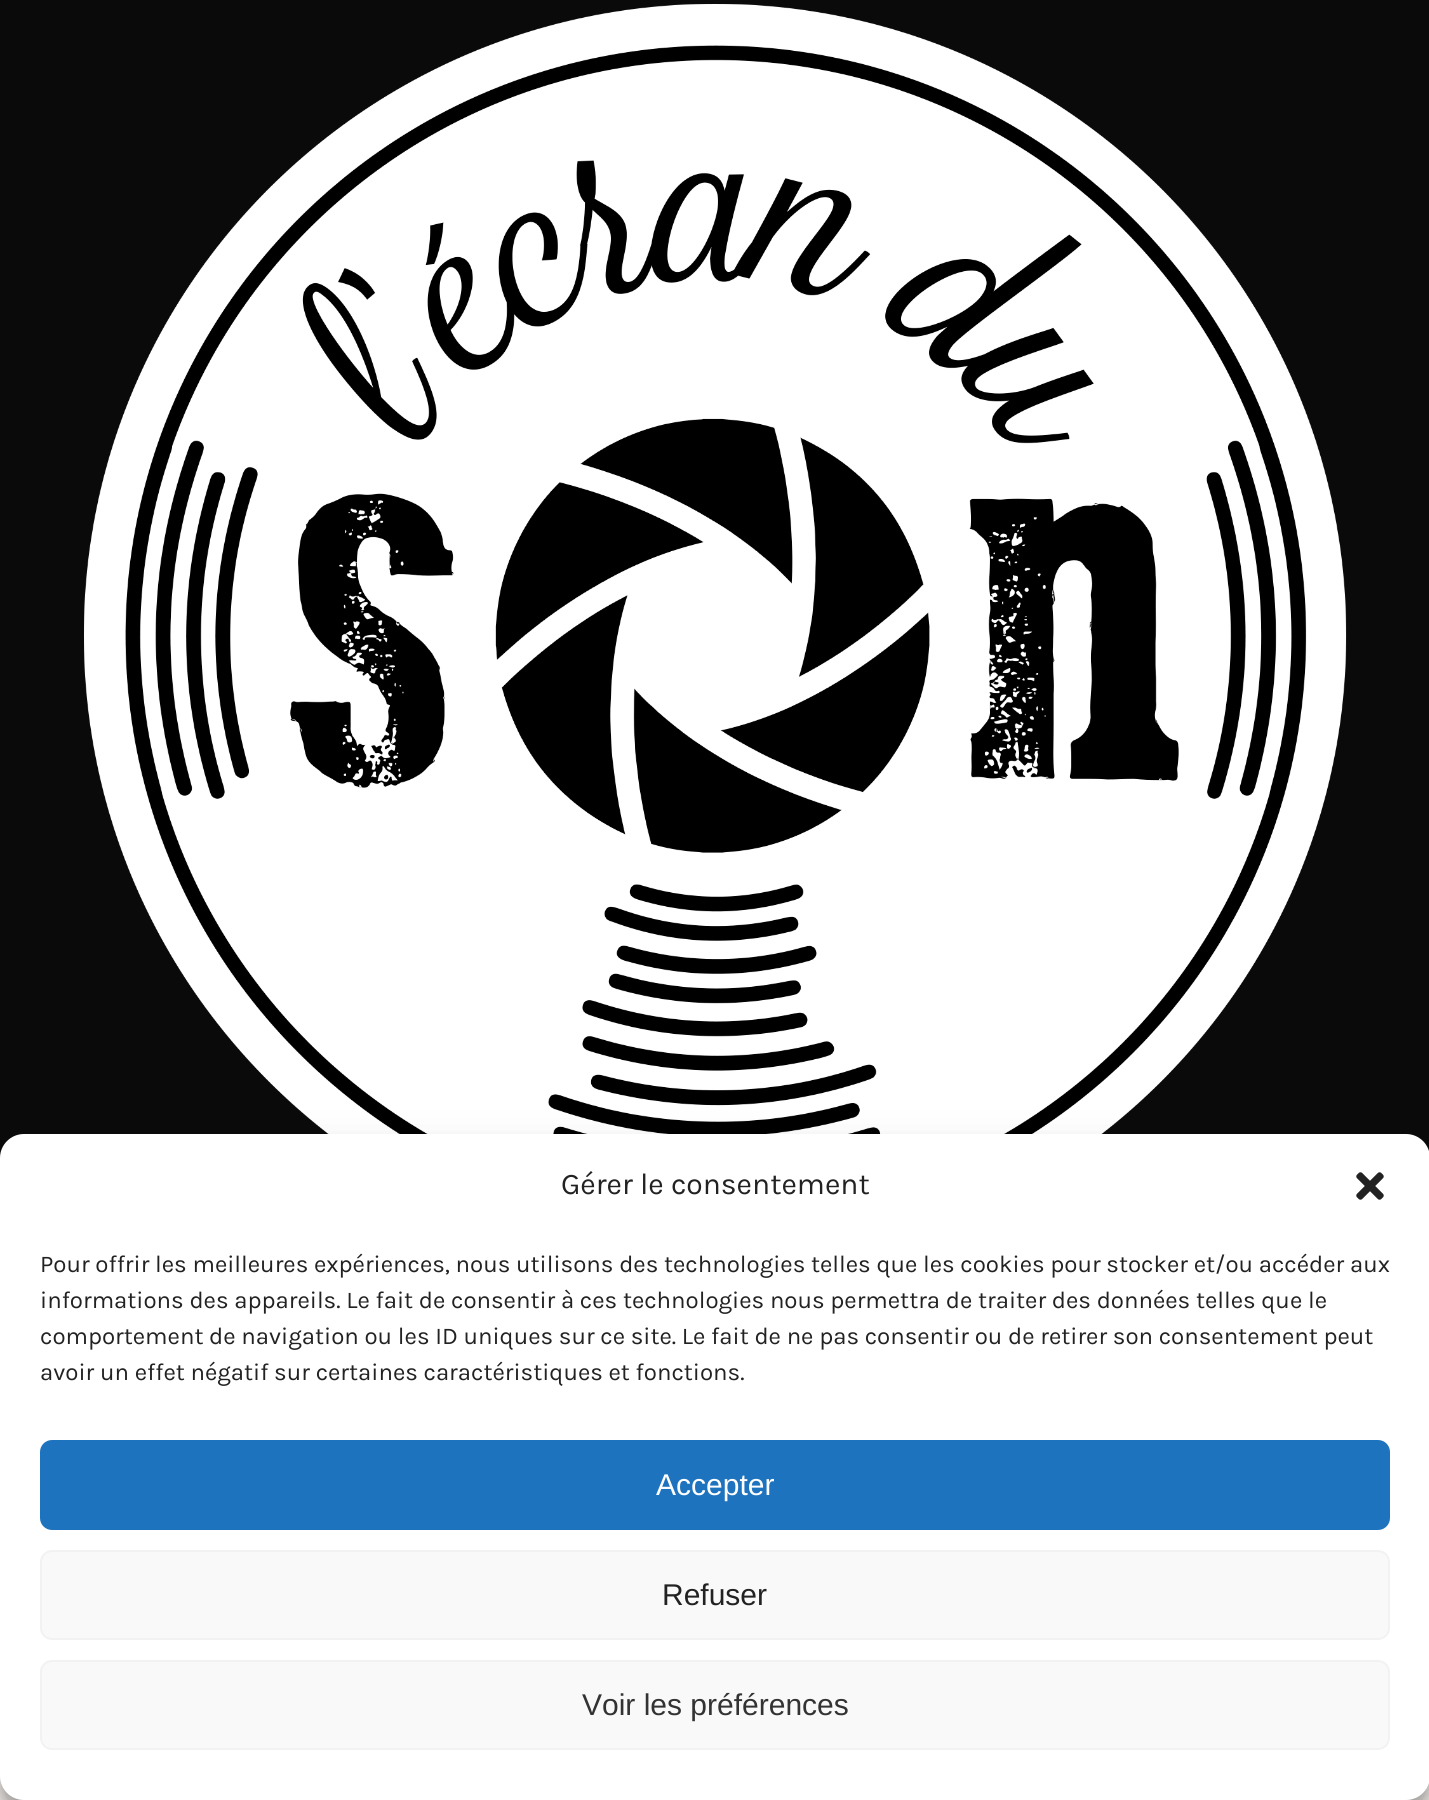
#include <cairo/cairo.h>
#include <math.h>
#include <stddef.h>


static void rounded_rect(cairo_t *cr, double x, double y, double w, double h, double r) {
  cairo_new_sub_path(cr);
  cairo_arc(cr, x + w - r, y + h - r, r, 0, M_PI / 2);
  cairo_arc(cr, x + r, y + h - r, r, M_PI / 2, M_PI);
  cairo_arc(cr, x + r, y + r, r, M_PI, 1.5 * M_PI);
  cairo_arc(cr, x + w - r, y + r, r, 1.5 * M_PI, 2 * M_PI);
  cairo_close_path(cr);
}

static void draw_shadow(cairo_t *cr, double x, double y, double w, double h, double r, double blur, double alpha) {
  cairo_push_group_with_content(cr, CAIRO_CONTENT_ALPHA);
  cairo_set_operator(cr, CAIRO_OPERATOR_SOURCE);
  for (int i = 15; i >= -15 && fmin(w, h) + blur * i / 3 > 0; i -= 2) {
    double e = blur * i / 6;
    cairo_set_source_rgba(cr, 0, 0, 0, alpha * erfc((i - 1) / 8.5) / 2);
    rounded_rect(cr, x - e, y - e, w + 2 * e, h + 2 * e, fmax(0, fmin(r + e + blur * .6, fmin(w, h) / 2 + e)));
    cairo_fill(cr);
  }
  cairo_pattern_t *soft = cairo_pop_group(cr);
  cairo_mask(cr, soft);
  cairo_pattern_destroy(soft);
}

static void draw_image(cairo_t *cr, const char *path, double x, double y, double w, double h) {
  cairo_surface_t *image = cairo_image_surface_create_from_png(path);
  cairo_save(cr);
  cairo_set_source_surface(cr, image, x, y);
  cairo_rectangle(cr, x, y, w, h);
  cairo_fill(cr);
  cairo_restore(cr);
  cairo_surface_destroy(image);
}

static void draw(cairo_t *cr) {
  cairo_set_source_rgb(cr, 10 / 255.0, 10 / 255.0, 10 / 255.0);
  cairo_paint(cr);
  draw_image(cr, "images/1.png", 84, 4, 1263, 1130);
  cairo_set_source_rgb(cr, 248 / 255.0, 244 / 255.0, 240 / 255.0);
  cairo_rectangle(cr, 0, 1776, 1429, 24);
  cairo_fill(cr);
  cairo_set_source_rgb(cr, 0, 0, 0);
  draw_shadow(cr, 0, 1146, 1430, 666, 24, 6, 0.23);
  draw_shadow(cr, 0, 1154, 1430, 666, 24, 20, 0.19);
  cairo_set_source_rgb(cr, 1, 1, 1);
  rounded_rect(cr, 0, 1134, 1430, 666, 24);
  cairo_fill(cr);
  draw_image(cr, "images/2.png", 1356, 1172, 28, 28);
  cairo_set_source_rgb(cr, 30 / 255.0, 115 / 255.0, 190 / 255.0);
  rounded_rect(cr, 41, 1441, 1348, 88, 11);
  cairo_fill_preserve(cr);
  cairo_stroke(cr);
  cairo_set_source_rgb(cr, 249 / 255.0, 249 / 255.0, 249 / 255.0);
  rounded_rect(cr, 41, 1551, 1348, 88, 11);
  cairo_fill_preserve(cr);
  cairo_set_source_rgb(cr, 242 / 255.0, 242 / 255.0, 242 / 255.0);
  cairo_stroke(cr);
  cairo_set_source_rgb(cr, 249 / 255.0, 249 / 255.0, 249 / 255.0);
  rounded_rect(cr, 41, 1661, 1348, 88, 11);
  cairo_fill_preserve(cr);
  cairo_set_source_rgb(cr, 242 / 255.0, 242 / 255.0, 242 / 255.0);
  cairo_stroke(cr);
  cairo_select_font_face(cr, "Karla", CAIRO_FONT_SLANT_NORMAL, CAIRO_FONT_WEIGHT_NORMAL);
  cairo_set_font_size(cr, 30);
  cairo_set_source_rgb(cr, 34 / 255.0, 34 / 255.0, 34 / 255.0);
  cairo_move_to(cr, 561, 1194);
  cairo_show_text(cr, "Gérer le consentement");
  cairo_set_font_size(cr, 24);
  cairo_move_to(cr, 40, 1272);
  cairo_show_text(cr, "Pour offrir les meilleures expériences, nous utilisons des technologies telles que les cookies pour stocker et/ou accéder aux");
  cairo_move_to(cr, 40, 1308);
  cairo_show_text(cr, "informations des appareils. Le fait de consentir à ces technologies nous permettra de traiter des données telles que le");
  cairo_move_to(cr, 40, 1344);
  cairo_show_text(cr, "comportement de navigation ou les ID uniques sur ce site. Le fait de ne pas consentir ou de retirer son consentement peut");
  cairo_move_to(cr, 40, 1380);
  cairo_show_text(cr, "avoir un effet négatif sur certaines caractéristiques et fonctions.");
  cairo_select_font_face(cr, "Liberation Sans", CAIRO_FONT_SLANT_NORMAL, CAIRO_FONT_WEIGHT_NORMAL);
  cairo_set_font_size(cr, 30);
  cairo_set_source_rgb(cr, 1, 1, 1);
  cairo_move_to(cr, 656, 1495);
  cairo_show_text(cr, "Accepter");
  cairo_set_source_rgb(cr, 34 / 255.0, 34 / 255.0, 34 / 255.0);
  cairo_move_to(cr, 662, 1605);
  cairo_show_text(cr, "Refuser");
  cairo_set_source_rgb(cr, 51 / 255.0, 51 / 255.0, 51 / 255.0);
  cairo_move_to(cr, 582, 1715);
  cairo_show_text(cr, "Voir les préférences");
}

int main(void) {
  cairo_surface_t *surface = cairo_image_surface_create(CAIRO_FORMAT_RGB24, 1429, 1800);
  cairo_t *cr = cairo_create(surface);
  cairo_font_options_t *options = cairo_font_options_create();
  cairo_font_options_set_hint_metrics(options, CAIRO_HINT_METRICS_OFF);
  cairo_font_options_set_hint_style(options, CAIRO_HINT_STYLE_NONE);
  cairo_set_font_options(cr, options);
  cairo_set_miter_limit(cr, 4);
  draw(cr);
  cairo_surface_write_to_png(surface, "out.png");
  cairo_font_options_destroy(options);
  cairo_destroy(cr);
  cairo_surface_destroy(surface);
  return 0;
}
